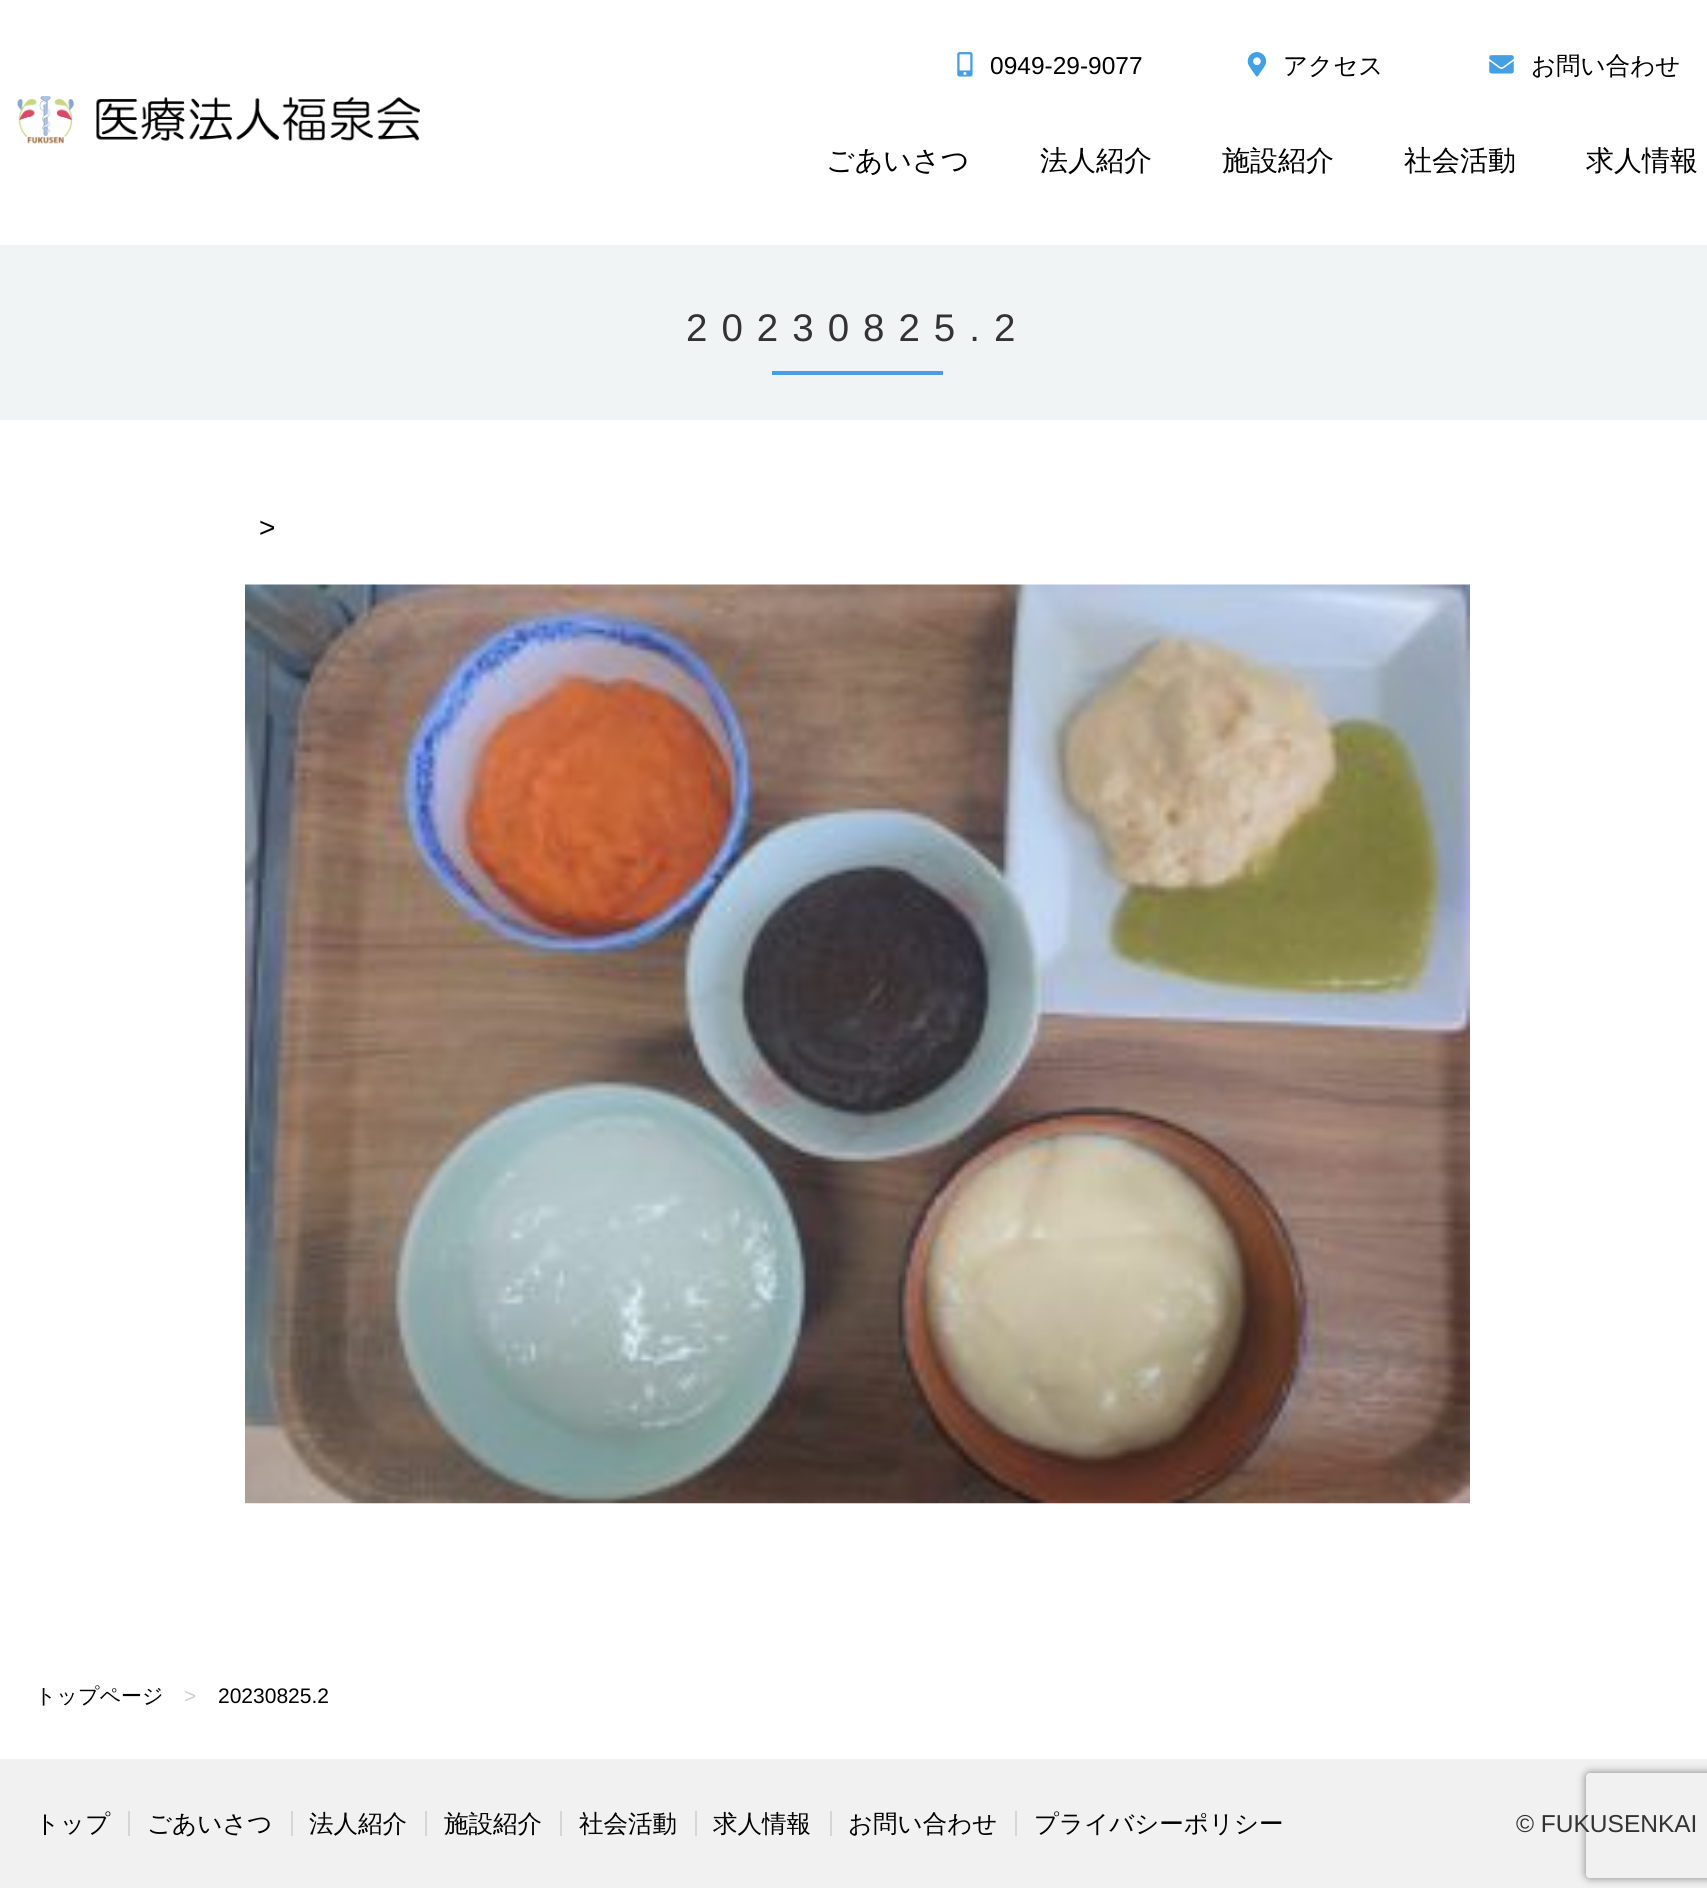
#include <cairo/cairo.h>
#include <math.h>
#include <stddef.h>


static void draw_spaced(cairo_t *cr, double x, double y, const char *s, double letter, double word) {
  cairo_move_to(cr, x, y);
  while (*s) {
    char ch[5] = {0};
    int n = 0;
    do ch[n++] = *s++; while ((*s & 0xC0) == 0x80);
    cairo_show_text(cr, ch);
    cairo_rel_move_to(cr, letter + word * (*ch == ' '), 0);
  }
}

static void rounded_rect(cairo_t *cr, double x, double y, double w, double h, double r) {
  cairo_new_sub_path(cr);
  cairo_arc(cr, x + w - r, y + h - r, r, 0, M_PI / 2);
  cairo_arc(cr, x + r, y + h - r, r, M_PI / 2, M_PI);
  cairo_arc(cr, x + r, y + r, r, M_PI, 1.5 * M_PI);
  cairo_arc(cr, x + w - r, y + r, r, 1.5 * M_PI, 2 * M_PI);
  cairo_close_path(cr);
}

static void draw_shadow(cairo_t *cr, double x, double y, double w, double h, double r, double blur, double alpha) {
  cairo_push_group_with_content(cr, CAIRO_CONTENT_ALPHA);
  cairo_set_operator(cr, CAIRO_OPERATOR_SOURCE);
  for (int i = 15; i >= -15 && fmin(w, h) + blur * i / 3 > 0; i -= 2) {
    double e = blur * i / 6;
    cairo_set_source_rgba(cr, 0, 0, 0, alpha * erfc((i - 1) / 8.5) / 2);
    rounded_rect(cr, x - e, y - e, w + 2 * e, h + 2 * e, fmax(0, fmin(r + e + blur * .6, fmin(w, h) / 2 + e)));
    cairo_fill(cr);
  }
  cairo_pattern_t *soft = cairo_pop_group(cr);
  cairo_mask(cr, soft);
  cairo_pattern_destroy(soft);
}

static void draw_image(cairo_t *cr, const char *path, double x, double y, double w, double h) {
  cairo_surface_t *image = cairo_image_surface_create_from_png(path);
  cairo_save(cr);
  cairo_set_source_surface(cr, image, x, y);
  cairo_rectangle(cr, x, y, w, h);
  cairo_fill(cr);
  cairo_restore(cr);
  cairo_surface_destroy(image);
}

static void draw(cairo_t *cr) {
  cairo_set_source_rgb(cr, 1, 1, 1);
  cairo_paint(cr);
  draw_image(cr, "images/1.png", 17, 96, 403, 48);
  draw_image(cr, "images/2.png", 957, 52, 16, 25);
  draw_image(cr, "images/3.png", 1247, 52, 20, 25);
  draw_image(cr, "images/4.png", 1489, 55, 25, 19);
  cairo_set_source_rgb(cr, 241 / 255.0, 244 / 255.0, 245 / 255.0);
  cairo_rectangle(cr, 0, 245, 1707, 175);
  cairo_fill(cr);
  cairo_set_source_rgb(cr, 68 / 255.0, 160 / 255.0, 226 / 255.0);
  cairo_rectangle(cr, 772, 371, 171, 4);
  cairo_fill(cr);
  draw_image(cr, "images/5.png", 245, 584, 1225, 920);
  cairo_set_source_rgb(cr, 241 / 255.0, 241 / 255.0, 241 / 255.0);
  cairo_rectangle(cr, 0, 1759, 1707, 129);
  cairo_fill(cr);
  cairo_set_source_rgb(cr, 214 / 255.0, 214 / 255.0, 214 / 255.0);
  cairo_rectangle(cr, 128, 1811, 2, 25);
  cairo_fill(cr);
  cairo_rectangle(cr, 291, 1811, 2, 25);
  cairo_fill(cr);
  cairo_rectangle(cr, 425, 1811, 2, 25);
  cairo_fill(cr);
  cairo_rectangle(cr, 560, 1811, 2, 25);
  cairo_fill(cr);
  cairo_rectangle(cr, 695, 1811, 2, 25);
  cairo_fill(cr);
  cairo_rectangle(cr, 830, 1811, 2, 25);
  cairo_fill(cr);
  cairo_rectangle(cr, 1015, 1811, 2, 25);
  cairo_fill(cr);
  cairo_save(cr);
  cairo_set_fill_rule(cr, CAIRO_FILL_RULE_EVEN_ODD);
  cairo_new_path(cr);
  cairo_move_to(cr, 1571, 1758);
  cairo_line_to(cr, 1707, 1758);
  cairo_line_to(cr, 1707, 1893);
  cairo_line_to(cr, 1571, 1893);
  cairo_close_path(cr);
  cairo_move_to(cr, 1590, 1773);
  cairo_line_to(cr, 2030, 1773);
  cairo_curve_to(cr, 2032, 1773, 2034, 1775, 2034, 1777);
  cairo_line_to(cr, 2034, 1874);
  cairo_curve_to(cr, 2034, 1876, 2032, 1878, 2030, 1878);
  cairo_line_to(cr, 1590, 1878);
  cairo_curve_to(cr, 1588, 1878, 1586, 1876, 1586, 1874);
  cairo_line_to(cr, 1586, 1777);
  cairo_curve_to(cr, 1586, 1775, 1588, 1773, 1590, 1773);
  cairo_close_path(cr);
  cairo_clip(cr);
  cairo_set_source_rgb(cr, 128 / 255.0, 128 / 255.0, 128 / 255.0);
  draw_shadow(cr, 1586, 1773, 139, 105, 4, 4.5, 1);
  cairo_restore(cr);
  cairo_select_font_face(cr, "Liberation Sans", CAIRO_FONT_SLANT_NORMAL, CAIRO_FONT_WEIGHT_NORMAL);
  cairo_set_font_size(cr, 24.5);
  cairo_set_source_rgb(cr, 0, 0, 0);
  cairo_move_to(cr, 990, 74);
  cairo_show_text(cr, "0949-29-9077");
  cairo_select_font_face(cr, "WenQuanYi Zen Hei Medium", CAIRO_FONT_SLANT_NORMAL, CAIRO_FONT_WEIGHT_NORMAL);
  cairo_move_to(cr, 1283, 74);
  cairo_show_text(cr, "アクセス");
  cairo_move_to(cr, 1531, 74);
  cairo_show_text(cr, "お問い合わせ");
  cairo_set_font_size(cr, 28);
  cairo_move_to(cr, 826, 170);
  cairo_show_text(cr, "ごあいさつ");
  cairo_move_to(cr, 1040, 170);
  cairo_show_text(cr, "法人紹介");
  cairo_move_to(cr, 1222, 170);
  cairo_show_text(cr, "施設紹介");
  cairo_move_to(cr, 1404, 170);
  cairo_show_text(cr, "社会活動");
  cairo_move_to(cr, 1586, 170);
  cairo_show_text(cr, "求人情報");
  cairo_select_font_face(cr, "Liberation Sans", CAIRO_FONT_SLANT_NORMAL, CAIRO_FONT_WEIGHT_NORMAL);
  cairo_set_font_size(cr, 38.5);
  cairo_set_source_rgb(cr, 51 / 255.0, 51 / 255.0, 51 / 255.0);
  draw_spaced(cr, 686, 341, "20230825.2", 14, 0);
  cairo_set_font_size(cr, 28);
  cairo_set_source_rgb(cr, 0, 0, 0);
  cairo_move_to(cr, 259, 537);
  cairo_show_text(cr, ">");
  cairo_select_font_face(cr, "WenQuanYi Zen Hei Medium", CAIRO_FONT_SLANT_NORMAL, CAIRO_FONT_WEIGHT_NORMAL);
  cairo_set_font_size(cr, 21);
  cairo_move_to(cr, 35, 1703);
  cairo_show_text(cr, "トップページ");
  cairo_select_font_face(cr, "Liberation Sans", CAIRO_FONT_SLANT_NORMAL, CAIRO_FONT_WEIGHT_NORMAL);
  cairo_set_source_rgb(cr, 206 / 255.0, 206 / 255.0, 206 / 255.0);
  cairo_move_to(cr, 184, 1703);
  cairo_show_text(cr, ">");
  cairo_set_source_rgb(cr, 0, 0, 0);
  cairo_move_to(cr, 218, 1703);
  cairo_show_text(cr, "20230825.2");
  cairo_select_font_face(cr, "WenQuanYi Zen Hei Medium", CAIRO_FONT_SLANT_NORMAL, CAIRO_FONT_WEIGHT_NORMAL);
  cairo_set_font_size(cr, 24.5);
  cairo_move_to(cr, 35, 1832);
  cairo_show_text(cr, "トップ");
  cairo_move_to(cr, 147, 1832);
  cairo_show_text(cr, "ごあいさつ");
  cairo_move_to(cr, 309, 1832);
  cairo_show_text(cr, "法人紹介");
  cairo_move_to(cr, 444, 1832);
  cairo_show_text(cr, "施設紹介");
  cairo_move_to(cr, 579, 1832);
  cairo_show_text(cr, "社会活動");
  cairo_move_to(cr, 713, 1832);
  cairo_show_text(cr, "求人情報");
  cairo_move_to(cr, 848, 1832);
  cairo_show_text(cr, "お問い合わせ");
  cairo_move_to(cr, 1034, 1832);
  cairo_show_text(cr, "プライバシーポリシー");
  cairo_select_font_face(cr, "Liberation Sans", CAIRO_FONT_SLANT_NORMAL, CAIRO_FONT_WEIGHT_NORMAL);
  cairo_set_source_rgb(cr, 51 / 255.0, 51 / 255.0, 51 / 255.0);
  cairo_move_to(cr, 1516, 1832);
  cairo_show_text(cr, "© FUKUSENKAI");
}

int main(void) {
  cairo_surface_t *surface = cairo_image_surface_create(CAIRO_FORMAT_RGB24, 1707, 1901);
  cairo_t *cr = cairo_create(surface);
  cairo_font_options_t *options = cairo_font_options_create();
  cairo_font_options_set_hint_metrics(options, CAIRO_HINT_METRICS_OFF);
  cairo_font_options_set_hint_style(options, CAIRO_HINT_STYLE_NONE);
  cairo_set_font_options(cr, options);
  cairo_set_miter_limit(cr, 4);
  draw(cr);
  cairo_surface_write_to_png(surface, "out.png");
  cairo_font_options_destroy(options);
  cairo_destroy(cr);
  cairo_surface_destroy(surface);
  return 0;
}
